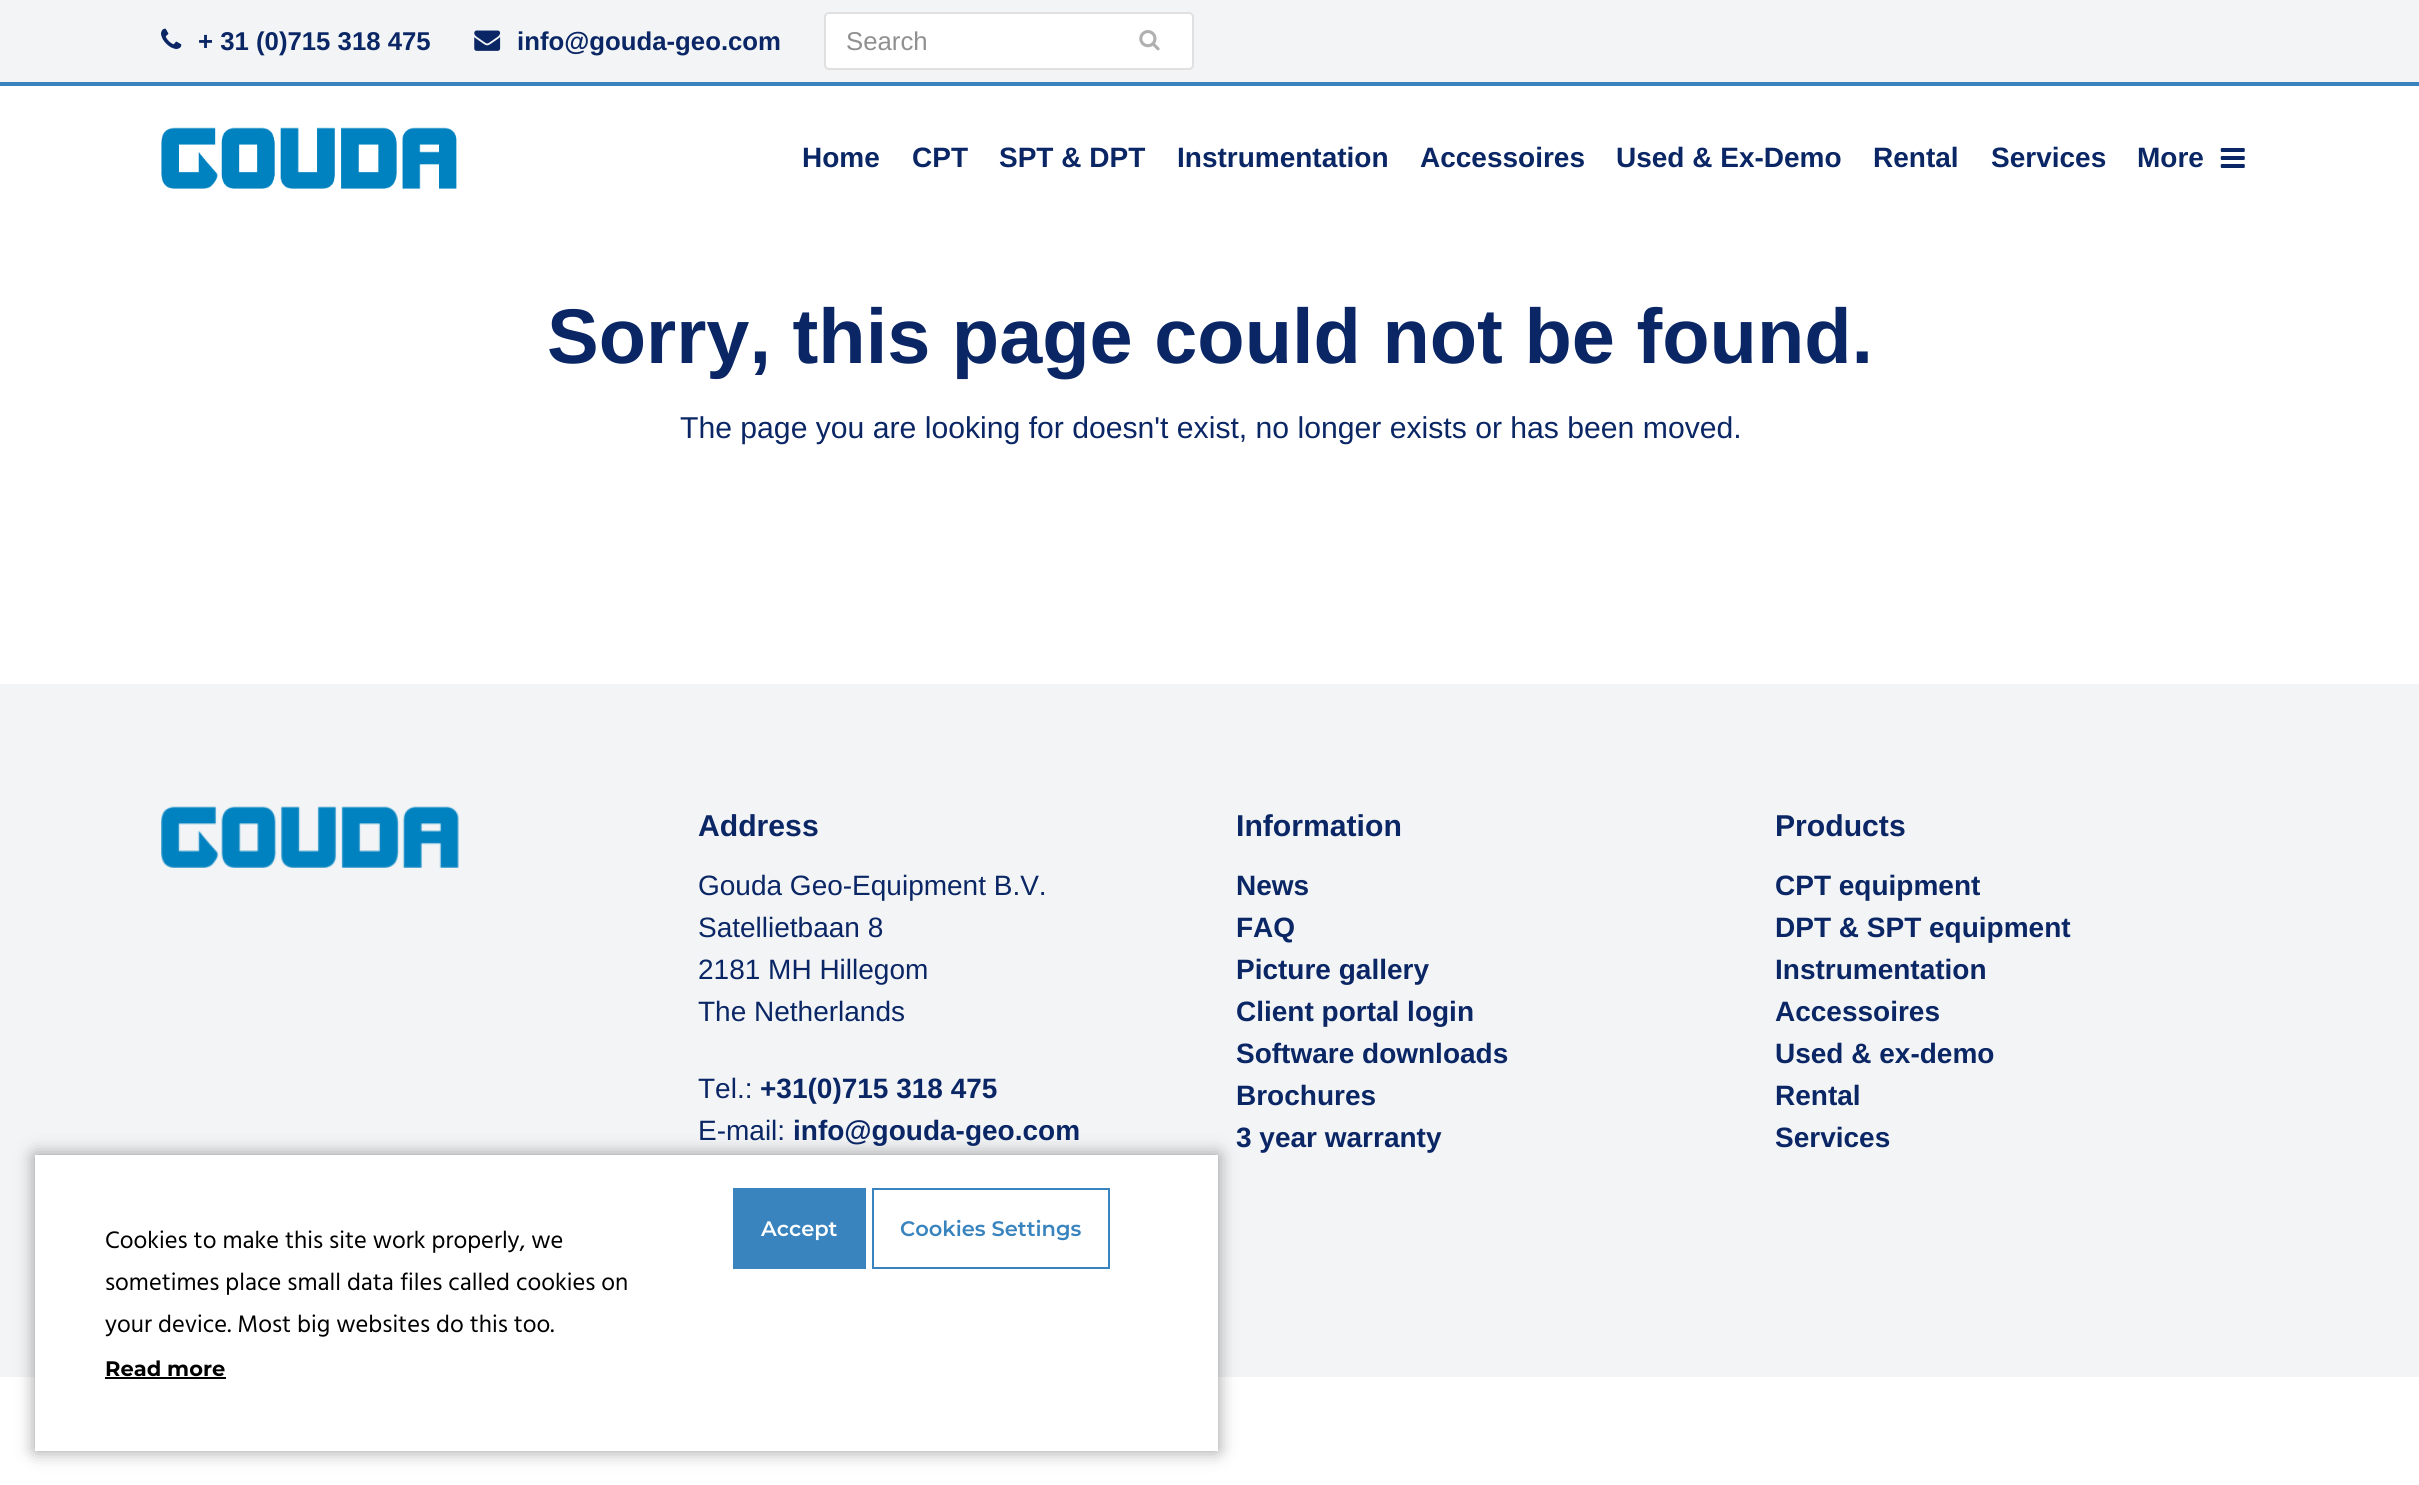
#include <cairo/cairo.h>
#include <math.h>
#include <stddef.h>


static void rounded_rect(cairo_t *cr, double x, double y, double w, double h, double r) {
  cairo_new_sub_path(cr);
  cairo_arc(cr, x + w - r, y + h - r, r, 0, M_PI / 2);
  cairo_arc(cr, x + r, y + h - r, r, M_PI / 2, M_PI);
  cairo_arc(cr, x + r, y + r, r, M_PI, 1.5 * M_PI);
  cairo_arc(cr, x + w - r, y + r, r, 1.5 * M_PI, 2 * M_PI);
  cairo_close_path(cr);
}

static void draw_shadow(cairo_t *cr, double x, double y, double w, double h, double r, double blur, double alpha) {
  cairo_push_group_with_content(cr, CAIRO_CONTENT_ALPHA);
  cairo_set_operator(cr, CAIRO_OPERATOR_SOURCE);
  for (int i = 15; i >= -15 && fmin(w, h) + blur * i / 3 > 0; i -= 2) {
    double e = blur * i / 6;
    cairo_set_source_rgba(cr, 0, 0, 0, alpha * erfc((i - 1) / 8.5) / 2);
    rounded_rect(cr, x - e, y - e, w + 2 * e, h + 2 * e, fmax(0, fmin(r + e + blur * .6, fmin(w, h) / 2 + e)));
    cairo_fill(cr);
  }
  cairo_pattern_t *soft = cairo_pop_group(cr);
  cairo_mask(cr, soft);
  cairo_pattern_destroy(soft);
}

static void draw_image(cairo_t *cr, const char *path, double x, double y, double w, double h) {
  cairo_surface_t *image = cairo_image_surface_create_from_png(path);
  cairo_save(cr);
  cairo_set_source_surface(cr, image, x, y);
  cairo_rectangle(cr, x, y, w, h);
  cairo_fill(cr);
  cairo_restore(cr);
  cairo_surface_destroy(image);
}

static void draw(cairo_t *cr) {
  cairo_set_source_rgb(cr, 1, 1, 1);
  cairo_paint(cr);
  cairo_set_source_rgb(cr, 242 / 255.0, 244 / 255.0, 246 / 255.0);
  cairo_rectangle(cr, 0, 0, 2419, 82);
  cairo_fill(cr);
  cairo_set_source_rgb(cr, 57 / 255.0, 132 / 255.0, 190 / 255.0);
  cairo_rectangle(cr, 0, 82, 2419, 4);
  cairo_fill(cr);
  draw_image(cr, "images/1.png", 161, 28, 21, 21);
  draw_image(cr, "images/2.png", 474, 30, 27, 21);
  cairo_set_source_rgb(cr, 1, 1, 1);
  rounded_rect(cr, 825, 13, 368, 56, 4);
  cairo_fill_preserve(cr);
  cairo_set_source_rgb(cr, 224 / 255.0, 224 / 255.0, 224 / 255.0);
  cairo_stroke(cr);
  draw_image(cr, "images/3.png", 1139, 30, 21, 21);
  draw_image(cr, "images/4.png", 161, 127, 296, 62);
  draw_image(cr, "images/5.png", 2220, 148, 25, 20);
  cairo_set_source_rgb(cr, 242 / 255.0, 244 / 255.0, 246 / 255.0);
  cairo_rectangle(cr, 0, 684, 2419, 693);
  cairo_fill(cr);
  draw_image(cr, "images/6.png", 161, 806, 298, 62);
  cairo_set_source_rgb(cr, 0, 0, 0);
  draw_shadow(cr, 35, 1155, 1183, 296, 0, 9, 0.4);
  cairo_set_source_rgb(cr, 1, 1, 1);
  cairo_rectangle(cr, 35, 1155, 1183, 296);
  cairo_fill(cr);
  cairo_set_source_rgb(cr, 0, 0, 0);
  cairo_rectangle(cr, 105, 1377, 121, 2);
  cairo_fill(cr);
  cairo_set_source_rgb(cr, 57 / 255.0, 132 / 255.0, 190 / 255.0);
  cairo_rectangle(cr, 733, 1188, 133, 81);
  cairo_fill(cr);
  cairo_rectangle(cr, 873, 1189, 236, 79);
  cairo_stroke(cr);
  cairo_select_font_face(cr, "Liberation Sans", CAIRO_FONT_SLANT_NORMAL, CAIRO_FONT_WEIGHT_BOLD);
  cairo_set_font_size(cr, 25.75);
  cairo_set_source_rgb(cr, 10 / 255.0, 38 / 255.0, 101 / 255.0);
  cairo_move_to(cr, 198, 50);
  cairo_show_text(cr, "+ 31 (0)715 318 475");
  cairo_move_to(cr, 517, 50);
  cairo_show_text(cr, "info@gouda-geo.com");
  cairo_select_font_face(cr, "Liberation Sans", CAIRO_FONT_SLANT_NORMAL, CAIRO_FONT_WEIGHT_NORMAL);
  cairo_set_source_rgb(cr, 144 / 255.0, 144 / 255.0, 144 / 255.0);
  cairo_move_to(cr, 846, 50);
  cairo_show_text(cr, "Search");
  cairo_select_font_face(cr, "Liberation Sans", CAIRO_FONT_SLANT_NORMAL, CAIRO_FONT_WEIGHT_BOLD);
  cairo_set_font_size(cr, 28);
  cairo_set_source_rgb(cr, 10 / 255.0, 38 / 255.0, 101 / 255.0);
  cairo_move_to(cr, 802, 167);
  cairo_show_text(cr, "Home");
  cairo_move_to(cr, 912, 167);
  cairo_show_text(cr, "CPT");
  cairo_move_to(cr, 999, 167);
  cairo_show_text(cr, "SPT & DPT");
  cairo_move_to(cr, 1177, 167);
  cairo_show_text(cr, "Instrumentation");
  cairo_move_to(cr, 1420, 167);
  cairo_show_text(cr, "Accessoires");
  cairo_move_to(cr, 1616, 167);
  cairo_show_text(cr, "Used & Ex-Demo");
  cairo_move_to(cr, 1873, 167);
  cairo_show_text(cr, "Rental");
  cairo_move_to(cr, 1991, 167);
  cairo_show_text(cr, "Services");
  cairo_move_to(cr, 2137, 167);
  cairo_show_text(cr, "More");
  cairo_set_font_size(cr, 77.5);
  cairo_move_to(cr, 547, 363);
  cairo_show_text(cr, "Sorry, this page could not be found.");
  cairo_select_font_face(cr, "Liberation Sans", CAIRO_FONT_SLANT_NORMAL, CAIRO_FONT_WEIGHT_NORMAL);
  cairo_set_font_size(cr, 30.15);
  cairo_move_to(cr, 680, 438);
  cairo_show_text(cr, "The page you are looking for doesn't exist, no longer exists or has been moved.");
  cairo_select_font_face(cr, "Liberation Sans", CAIRO_FONT_SLANT_NORMAL, CAIRO_FONT_WEIGHT_BOLD);
  cairo_move_to(cr, 698, 836);
  cairo_show_text(cr, "Address");
  cairo_select_font_face(cr, "Liberation Sans", CAIRO_FONT_SLANT_NORMAL, CAIRO_FONT_WEIGHT_NORMAL);
  cairo_set_font_size(cr, 28);
  cairo_move_to(cr, 698, 895);
  cairo_show_text(cr, "Gouda Geo-Equipment B.V.");
  cairo_move_to(cr, 698, 937);
  cairo_show_text(cr, "Satellietbaan 8");
  cairo_move_to(cr, 698, 979);
  cairo_show_text(cr, "2181 MH Hillegom");
  cairo_move_to(cr, 698, 1021);
  cairo_show_text(cr, "The Netherlands");
  cairo_move_to(cr, 698, 1098);
  cairo_show_text(cr, "Tel.:");
  cairo_select_font_face(cr, "Liberation Sans", CAIRO_FONT_SLANT_NORMAL, CAIRO_FONT_WEIGHT_BOLD);
  cairo_move_to(cr, 760, 1098);
  cairo_show_text(cr, "+31(0)715 318 475");
  cairo_select_font_face(cr, "Liberation Sans", CAIRO_FONT_SLANT_NORMAL, CAIRO_FONT_WEIGHT_NORMAL);
  cairo_move_to(cr, 698, 1140);
  cairo_show_text(cr, "E-mail:");
  cairo_select_font_face(cr, "Liberation Sans", CAIRO_FONT_SLANT_NORMAL, CAIRO_FONT_WEIGHT_BOLD);
  cairo_move_to(cr, 793, 1140);
  cairo_show_text(cr, "info@gouda-geo.com");
  cairo_set_font_size(cr, 30.15);
  cairo_move_to(cr, 1236, 836);
  cairo_show_text(cr, "Information");
  cairo_set_font_size(cr, 28);
  cairo_move_to(cr, 1236, 895);
  cairo_show_text(cr, "News");
  cairo_move_to(cr, 1236, 937);
  cairo_show_text(cr, "FAQ");
  cairo_move_to(cr, 1236, 979);
  cairo_show_text(cr, "Picture gallery");
  cairo_move_to(cr, 1236, 1021);
  cairo_show_text(cr, "Client portal login");
  cairo_move_to(cr, 1236, 1063);
  cairo_show_text(cr, "Software downloads");
  cairo_move_to(cr, 1236, 1105);
  cairo_show_text(cr, "Brochures");
  cairo_move_to(cr, 1236, 1147);
  cairo_show_text(cr, "3 year warranty");
  cairo_set_font_size(cr, 30.15);
  cairo_move_to(cr, 1775, 836);
  cairo_show_text(cr, "Products");
  cairo_set_font_size(cr, 28);
  cairo_move_to(cr, 1775, 895);
  cairo_show_text(cr, "CPT equipment");
  cairo_move_to(cr, 1775, 937);
  cairo_show_text(cr, "DPT & SPT equipment");
  cairo_move_to(cr, 1775, 979);
  cairo_show_text(cr, "Instrumentation");
  cairo_move_to(cr, 1775, 1021);
  cairo_show_text(cr, "Accessoires");
  cairo_move_to(cr, 1775, 1063);
  cairo_show_text(cr, "Used & ex-demo");
  cairo_move_to(cr, 1775, 1105);
  cairo_show_text(cr, "Rental");
  cairo_move_to(cr, 1775, 1147);
  cairo_show_text(cr, "Services");
  cairo_select_font_face(cr, "Hind", CAIRO_FONT_SLANT_NORMAL, CAIRO_FONT_WEIGHT_NORMAL);
  cairo_set_font_size(cr, 24.5);
  cairo_set_source_rgb(cr, 0, 0, 0);
  cairo_move_to(cr, 105, 1248);
  cairo_show_text(cr, "Cookies to make this site work properly, we");
  cairo_move_to(cr, 105, 1290);
  cairo_show_text(cr, "sometimes place small data files called cookies on");
  cairo_move_to(cr, 105, 1332);
  cairo_show_text(cr, "your device. Most big websites do this too.");
  cairo_select_font_face(cr, "Montserrat", CAIRO_FONT_SLANT_NORMAL, CAIRO_FONT_WEIGHT_BOLD);
  cairo_set_font_size(cr, 21);
  cairo_move_to(cr, 105, 1376);
  cairo_show_text(cr, "Read more");
  cairo_select_font_face(cr, "Montserrat SemiBold", CAIRO_FONT_SLANT_NORMAL, CAIRO_FONT_WEIGHT_NORMAL);
  cairo_set_source_rgb(cr, 1, 1, 1);
  cairo_move_to(cr, 761, 1236);
  cairo_show_text(cr, "Accept");
  cairo_set_source_rgb(cr, 57 / 255.0, 132 / 255.0, 190 / 255.0);
  cairo_move_to(cr, 900, 1236);
  cairo_show_text(cr, "Cookies Settings");
}

int main(void) {
  cairo_surface_t *surface = cairo_image_surface_create(CAIRO_FORMAT_RGB24, 2419, 1485);
  cairo_t *cr = cairo_create(surface);
  cairo_font_options_t *options = cairo_font_options_create();
  cairo_font_options_set_hint_metrics(options, CAIRO_HINT_METRICS_OFF);
  cairo_font_options_set_hint_style(options, CAIRO_HINT_STYLE_NONE);
  cairo_set_font_options(cr, options);
  cairo_set_miter_limit(cr, 4);
  draw(cr);
  cairo_surface_write_to_png(surface, "out.png");
  cairo_font_options_destroy(options);
  cairo_destroy(cr);
  cairo_surface_destroy(surface);
  return 0;
}
